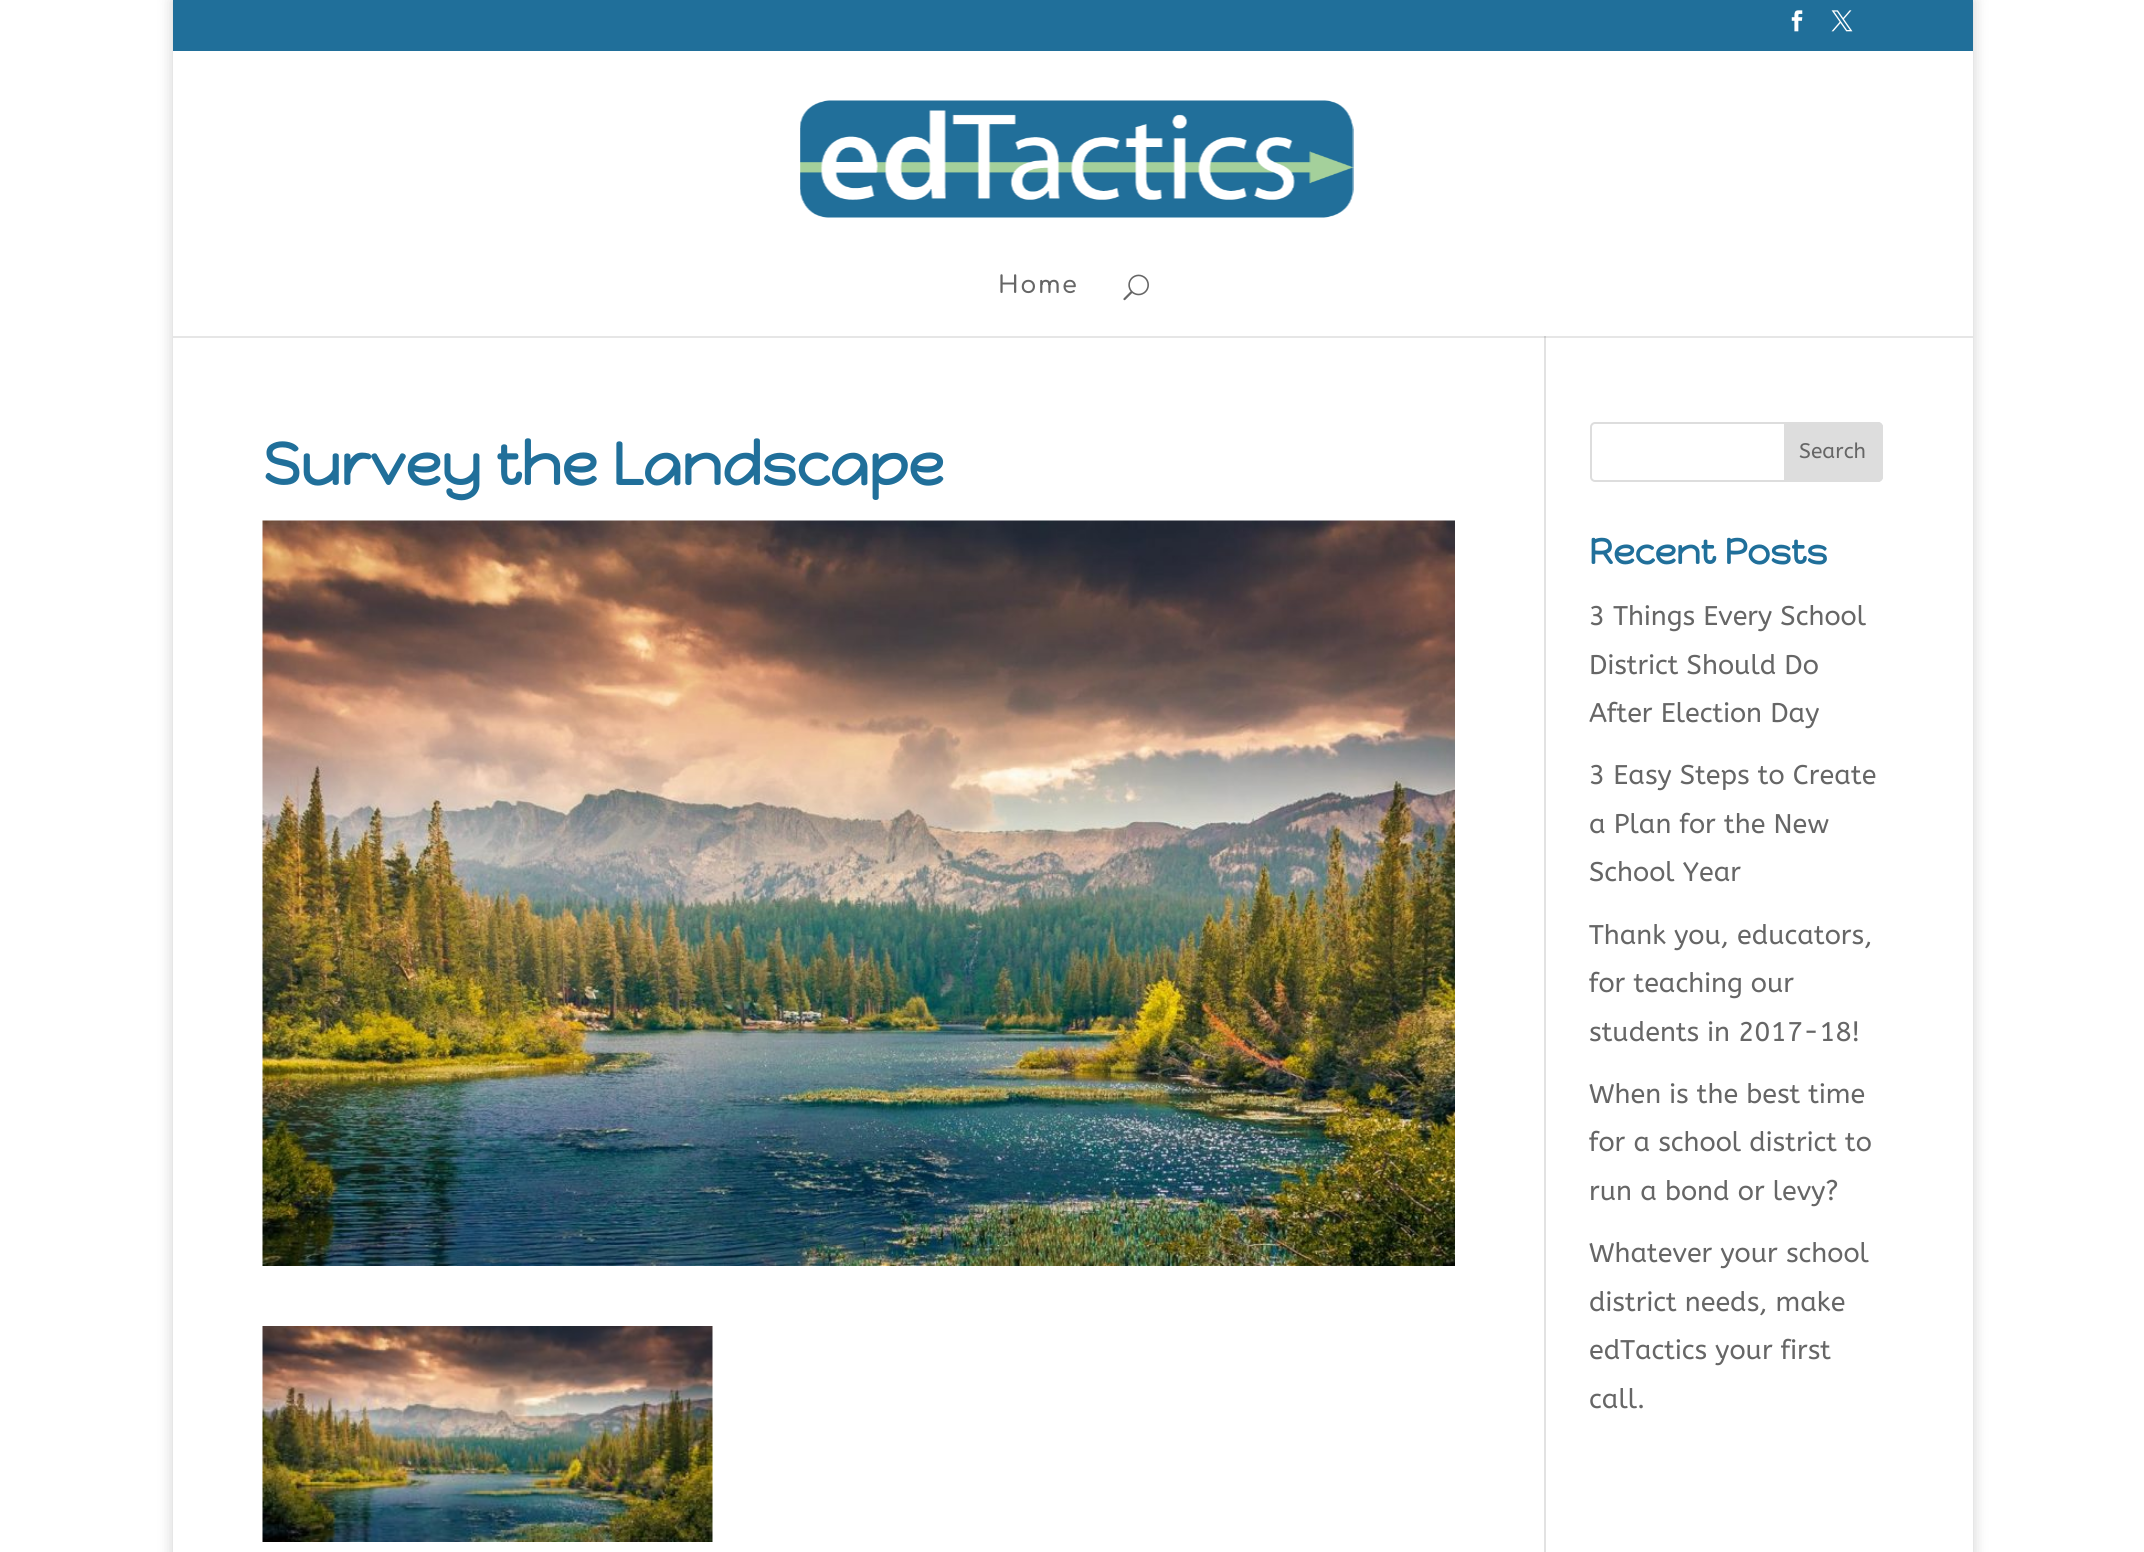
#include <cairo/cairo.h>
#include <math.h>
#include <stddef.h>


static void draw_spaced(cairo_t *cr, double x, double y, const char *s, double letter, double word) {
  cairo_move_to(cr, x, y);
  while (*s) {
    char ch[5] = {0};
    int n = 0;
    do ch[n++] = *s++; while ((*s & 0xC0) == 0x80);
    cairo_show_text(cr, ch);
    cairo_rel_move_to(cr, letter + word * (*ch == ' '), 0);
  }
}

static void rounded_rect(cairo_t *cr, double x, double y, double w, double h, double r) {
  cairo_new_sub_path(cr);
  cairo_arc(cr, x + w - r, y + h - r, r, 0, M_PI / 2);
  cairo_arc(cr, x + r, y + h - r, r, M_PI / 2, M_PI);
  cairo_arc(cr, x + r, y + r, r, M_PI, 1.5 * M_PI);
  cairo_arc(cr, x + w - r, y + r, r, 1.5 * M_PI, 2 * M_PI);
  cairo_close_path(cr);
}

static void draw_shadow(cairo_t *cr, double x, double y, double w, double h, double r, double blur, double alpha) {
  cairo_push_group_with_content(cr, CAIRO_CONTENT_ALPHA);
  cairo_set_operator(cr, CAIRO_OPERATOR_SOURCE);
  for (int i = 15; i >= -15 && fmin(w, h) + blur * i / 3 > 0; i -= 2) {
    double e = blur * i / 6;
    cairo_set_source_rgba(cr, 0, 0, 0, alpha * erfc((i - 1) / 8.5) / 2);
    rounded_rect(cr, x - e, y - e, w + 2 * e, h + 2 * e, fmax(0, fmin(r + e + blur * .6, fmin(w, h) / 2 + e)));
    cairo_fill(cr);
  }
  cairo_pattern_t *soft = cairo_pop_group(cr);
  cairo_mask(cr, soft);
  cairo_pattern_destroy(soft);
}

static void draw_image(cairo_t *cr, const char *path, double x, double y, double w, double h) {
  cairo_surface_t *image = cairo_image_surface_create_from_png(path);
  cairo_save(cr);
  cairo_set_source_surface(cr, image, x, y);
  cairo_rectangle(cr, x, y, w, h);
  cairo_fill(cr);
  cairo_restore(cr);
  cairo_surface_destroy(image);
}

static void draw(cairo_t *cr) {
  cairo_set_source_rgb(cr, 1, 1, 1);
  cairo_paint(cr);
  cairo_set_source_rgb(cr, 0, 0, 0);
  draw_shadow(cr, 173, 0, 1800, 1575, 0, 7.5, 0.2);
  cairo_set_source_rgb(cr, 32 / 255.0, 111 / 255.0, 154 / 255.0);
  cairo_rectangle(cr, 173, 0, 1800, 51);
  cairo_fill(cr);
  draw_image(cr, "images/1.png", 1791, 10, 12, 22);
  draw_image(cr, "images/2.png", 1831, 10, 22, 22);
  cairo_set_source_rgb(cr, 1, 1, 1);
  cairo_rectangle(cr, 173, 336, 1800, 1216);
  cairo_fill(cr);
  cairo_set_source_rgb(cr, 226 / 255.0, 226 / 255.0, 226 / 255.0);
  cairo_rectangle(cr, 1544, 335, 2, 1217);
  cairo_fill(cr);
  cairo_set_source_rgba(cr, 0, 0, 0, 0.1);
  cairo_new_path(cr);
  cairo_move_to(cr, 173, 336);
  cairo_line_to(cr, 173, 338);
  cairo_line_to(cr, 1973, 338);
  cairo_line_to(cr, 1973, 53);
  cairo_line_to(cr, 1972, 53);
  cairo_line_to(cr, 1972, 336);
  cairo_close_path(cr);
  cairo_fill(cr);
  cairo_set_source_rgb(cr, 1, 1, 1);
  cairo_rectangle(cr, 173, 51, 1800, 285);
  cairo_fill(cr);
  draw_image(cr, "images/3.png", 800, 100, 554, 118);
  draw_image(cr, "images/4.png", 1123, 274, 26, 27);
  draw_image(cr, "images/5.png", 262, 520, 1193, 746);
  draw_image(cr, "images/6.png", 262, 1326, 451, 216);
  rounded_rect(cr, 1591, 423, 291, 58, 4);
  cairo_set_source_rgb(cr, 221 / 255.0, 221 / 255.0, 221 / 255.0);
  cairo_stroke(cr);
  cairo_new_path(cr);
  cairo_move_to(cr, 1785, 423);
  cairo_line_to(cr, 1878, 423);
  cairo_curve_to(cr, 1880, 423, 1882, 425, 1882, 427);
  cairo_line_to(cr, 1882, 477);
  cairo_curve_to(cr, 1882, 479, 1880, 481, 1878, 481);
  cairo_line_to(cr, 1785, 481);
  cairo_close_path(cr);
  cairo_fill_preserve(cr);
  cairo_stroke(cr);
  cairo_select_font_face(cr, "Comfortaa SemiBold", CAIRO_FONT_SLANT_NORMAL, CAIRO_FONT_WEIGHT_NORMAL);
  cairo_set_font_size(cr, 24);
  cairo_set_source_rgb(cr, 102 / 255.0, 102 / 255.0, 102 / 255.0);
  draw_spaced(cr, 998, 293, "Home", 1.5, 0);
  cairo_select_font_face(cr, "Happy Monkey", CAIRO_FONT_SLANT_NORMAL, CAIRO_FONT_WEIGHT_BOLD);
  cairo_set_font_size(cr, 60);
  cairo_set_source_rgb(cr, 32 / 255.0, 111 / 255.0, 154 / 255.0);
  cairo_move_to(cr, 263, 485);
  cairo_show_text(cr, "Survey the Landscape");
  cairo_select_font_face(cr, "ABeeZee", CAIRO_FONT_SLANT_NORMAL, CAIRO_FONT_WEIGHT_NORMAL);
  cairo_set_font_size(cr, 21);
  cairo_set_source_rgb(cr, 102 / 255.0, 102 / 255.0, 102 / 255.0);
  cairo_move_to(cr, 1799, 458);
  cairo_show_text(cr, "Search");
  cairo_select_font_face(cr, "Happy Monkey", CAIRO_FONT_SLANT_NORMAL, CAIRO_FONT_WEIGHT_BOLD);
  cairo_set_font_size(cr, 36);
  cairo_set_source_rgb(cr, 32 / 255.0, 111 / 255.0, 154 / 255.0);
  cairo_move_to(cr, 1589, 564);
  cairo_show_text(cr, "Recent Posts");
  cairo_select_font_face(cr, "ABeeZee", CAIRO_FONT_SLANT_NORMAL, CAIRO_FONT_WEIGHT_NORMAL);
  cairo_set_font_size(cr, 27);
  cairo_set_source_rgb(cr, 102 / 255.0, 102 / 255.0, 102 / 255.0);
  cairo_move_to(cr, 1589, 625);
  cairo_show_text(cr, "3 Things Every School");
  cairo_move_to(cr, 1589, 674);
  cairo_show_text(cr, "District Should Do");
  cairo_move_to(cr, 1589, 722);
  cairo_show_text(cr, "After Election Day");
  cairo_move_to(cr, 1589, 784);
  cairo_show_text(cr, "3 Easy Steps to Create");
  cairo_move_to(cr, 1589, 833);
  cairo_show_text(cr, "a Plan for the New");
  cairo_move_to(cr, 1589, 881);
  cairo_show_text(cr, "School Year");
  cairo_move_to(cr, 1589, 944);
  cairo_show_text(cr, "Thank you, educators,");
  cairo_move_to(cr, 1589, 992);
  cairo_show_text(cr, "for teaching our");
  cairo_move_to(cr, 1589, 1041);
  cairo_show_text(cr, "students in 2017-18!");
  cairo_move_to(cr, 1589, 1103);
  cairo_show_text(cr, "When is the best time");
  cairo_move_to(cr, 1589, 1151);
  cairo_show_text(cr, "for a school district to");
  cairo_move_to(cr, 1589, 1200);
  cairo_show_text(cr, "run a bond or levy?");
  cairo_move_to(cr, 1589, 1262);
  cairo_show_text(cr, "Whatever your school");
  cairo_move_to(cr, 1589, 1311);
  cairo_show_text(cr, "district needs, make");
  cairo_move_to(cr, 1589, 1359);
  cairo_show_text(cr, "edTactics your first");
  cairo_move_to(cr, 1589, 1408);
  cairo_show_text(cr, "call.");
}

int main(void) {
  cairo_surface_t *surface = cairo_image_surface_create(CAIRO_FORMAT_RGB24, 2144, 1552);
  cairo_t *cr = cairo_create(surface);
  cairo_font_options_t *options = cairo_font_options_create();
  cairo_font_options_set_hint_metrics(options, CAIRO_HINT_METRICS_OFF);
  cairo_font_options_set_hint_style(options, CAIRO_HINT_STYLE_NONE);
  cairo_set_font_options(cr, options);
  cairo_set_miter_limit(cr, 4);
  draw(cr);
  cairo_surface_write_to_png(surface, "out.png");
  cairo_font_options_destroy(options);
  cairo_destroy(cr);
  cairo_surface_destroy(surface);
  return 0;
}
